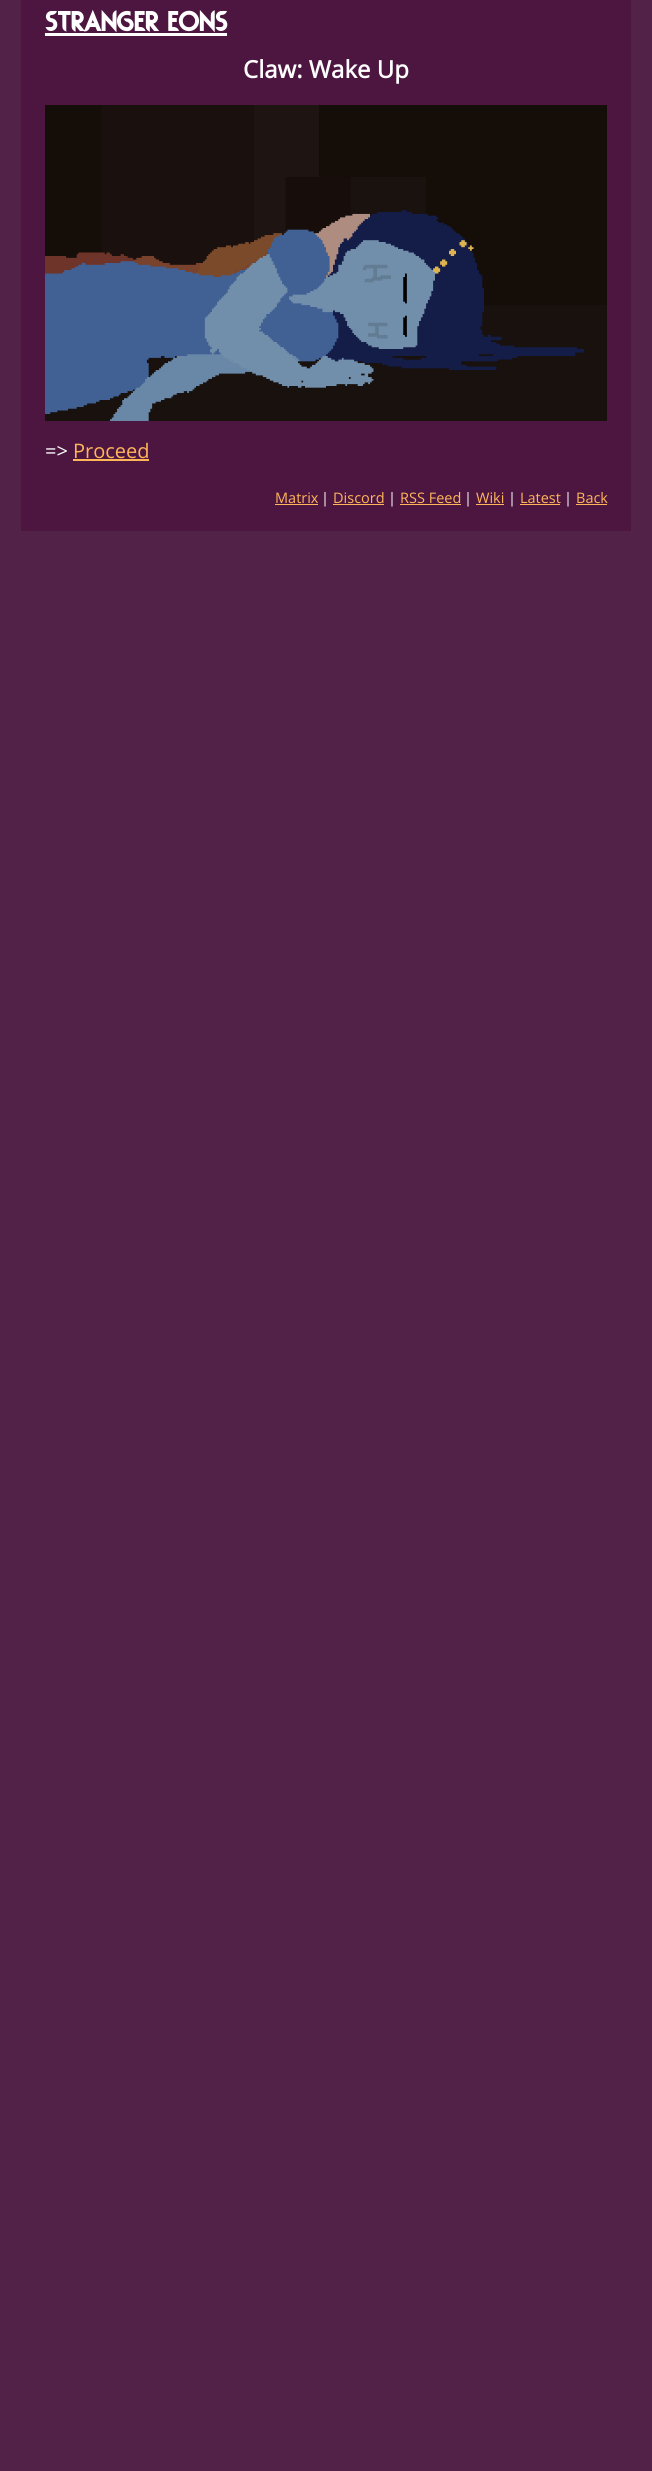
#include <cairo/cairo.h>
#include <math.h>
#include <stddef.h>


static void draw_image(cairo_t *cr, const char *path, double x, double y, double w, double h) {
  cairo_surface_t *image = cairo_image_surface_create_from_png(path);
  cairo_save(cr);
  cairo_set_source_surface(cr, image, x, y);
  cairo_rectangle(cr, x, y, w, h);
  cairo_fill(cr);
  cairo_restore(cr);
  cairo_surface_destroy(image);
}

static void draw(cairo_t *cr) {
  cairo_set_source_rgb(cr, 82 / 255.0, 34 / 255.0, 72 / 255.0);
  cairo_paint(cr);
  cairo_set_source_rgb(cr, 77 / 255.0, 22 / 255.0, 65 / 255.0);
  cairo_rectangle(cr, 21, 0, 610, 531);
  cairo_fill(cr);
  cairo_set_source_rgb(cr, 1, 1, 1);
  cairo_rectangle(cr, 45, 33, 182, 3);
  cairo_fill(cr);
  draw_image(cr, "images/1.png", 45, 105, 562, 316);
  cairo_set_source_rgb(cr, 1, 182 / 255.0, 89 / 255.0);
  cairo_rectangle(cr, 73, 459, 76, 2);
  cairo_fill(cr);
  cairo_rectangle(cr, 275, 504, 43, 1);
  cairo_fill(cr);
  cairo_rectangle(cr, 333, 504, 51, 1);
  cairo_fill(cr);
  cairo_rectangle(cr, 400, 504, 61, 1);
  cairo_fill(cr);
  cairo_rectangle(cr, 476, 504, 28, 1);
  cairo_fill(cr);
  cairo_rectangle(cr, 520, 504, 40, 1);
  cairo_fill(cr);
  cairo_rectangle(cr, 576, 504, 31, 1);
  cairo_fill(cr);
  cairo_select_font_face(cr, "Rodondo", CAIRO_FONT_SLANT_NORMAL, CAIRO_FONT_WEIGHT_BOLD);
  cairo_set_font_size(cr, 32);
  cairo_set_source_rgb(cr, 1, 1, 1);
  cairo_move_to(cr, 45, 31);
  cairo_show_text(cr, "STRANGER EONS");
  cairo_select_font_face(cr, "Open Sans", CAIRO_FONT_SLANT_NORMAL, CAIRO_FONT_WEIGHT_BOLD);
  cairo_set_font_size(cr, 24);
  cairo_move_to(cr, 243, 78);
  cairo_show_text(cr, "Claw: Wake Up");
  cairo_select_font_face(cr, "Open Sans", CAIRO_FONT_SLANT_NORMAL, CAIRO_FONT_WEIGHT_NORMAL);
  cairo_set_font_size(cr, 20);
  cairo_move_to(cr, 45, 458);
  cairo_show_text(cr, "=>");
  cairo_set_source_rgb(cr, 1, 182 / 255.0, 89 / 255.0);
  cairo_move_to(cr, 73, 458);
  cairo_show_text(cr, "Proceed");
  cairo_set_font_size(cr, 14.5);
  cairo_move_to(cr, 275, 503);
  cairo_show_text(cr, "Matrix");
  cairo_set_source_rgb(cr, 1, 1, 1);
  cairo_move_to(cr, 321, 503);
  cairo_show_text(cr, "|");
  cairo_set_source_rgb(cr, 1, 182 / 255.0, 89 / 255.0);
  cairo_move_to(cr, 333, 503);
  cairo_show_text(cr, "Discord");
  cairo_set_source_rgb(cr, 1, 1, 1);
  cairo_move_to(cr, 388, 503);
  cairo_show_text(cr, "|");
  cairo_set_source_rgb(cr, 1, 182 / 255.0, 89 / 255.0);
  cairo_move_to(cr, 400, 503);
  cairo_show_text(cr, "RSS Feed");
  cairo_set_source_rgb(cr, 1, 1, 1);
  cairo_move_to(cr, 464, 503);
  cairo_show_text(cr, "|");
  cairo_set_source_rgb(cr, 1, 182 / 255.0, 89 / 255.0);
  cairo_move_to(cr, 476, 503);
  cairo_show_text(cr, "Wiki");
  cairo_set_source_rgb(cr, 1, 1, 1);
  cairo_move_to(cr, 508, 503);
  cairo_show_text(cr, "|");
  cairo_set_source_rgb(cr, 1, 182 / 255.0, 89 / 255.0);
  cairo_move_to(cr, 520, 503);
  cairo_show_text(cr, "Latest");
  cairo_set_source_rgb(cr, 1, 1, 1);
  cairo_move_to(cr, 564, 503);
  cairo_show_text(cr, "|");
  cairo_set_source_rgb(cr, 1, 182 / 255.0, 89 / 255.0);
  cairo_move_to(cr, 576, 503);
  cairo_show_text(cr, "Back");
}

int main(void) {
  cairo_surface_t *surface = cairo_image_surface_create(CAIRO_FORMAT_RGB24, 652, 2471);
  cairo_t *cr = cairo_create(surface);
  cairo_font_options_t *options = cairo_font_options_create();
  cairo_font_options_set_hint_metrics(options, CAIRO_HINT_METRICS_OFF);
  cairo_font_options_set_hint_style(options, CAIRO_HINT_STYLE_NONE);
  cairo_set_font_options(cr, options);
  cairo_set_miter_limit(cr, 4);
  draw(cr);
  cairo_surface_write_to_png(surface, "out.png");
  cairo_font_options_destroy(options);
  cairo_destroy(cr);
  cairo_surface_destroy(surface);
  return 0;
}
